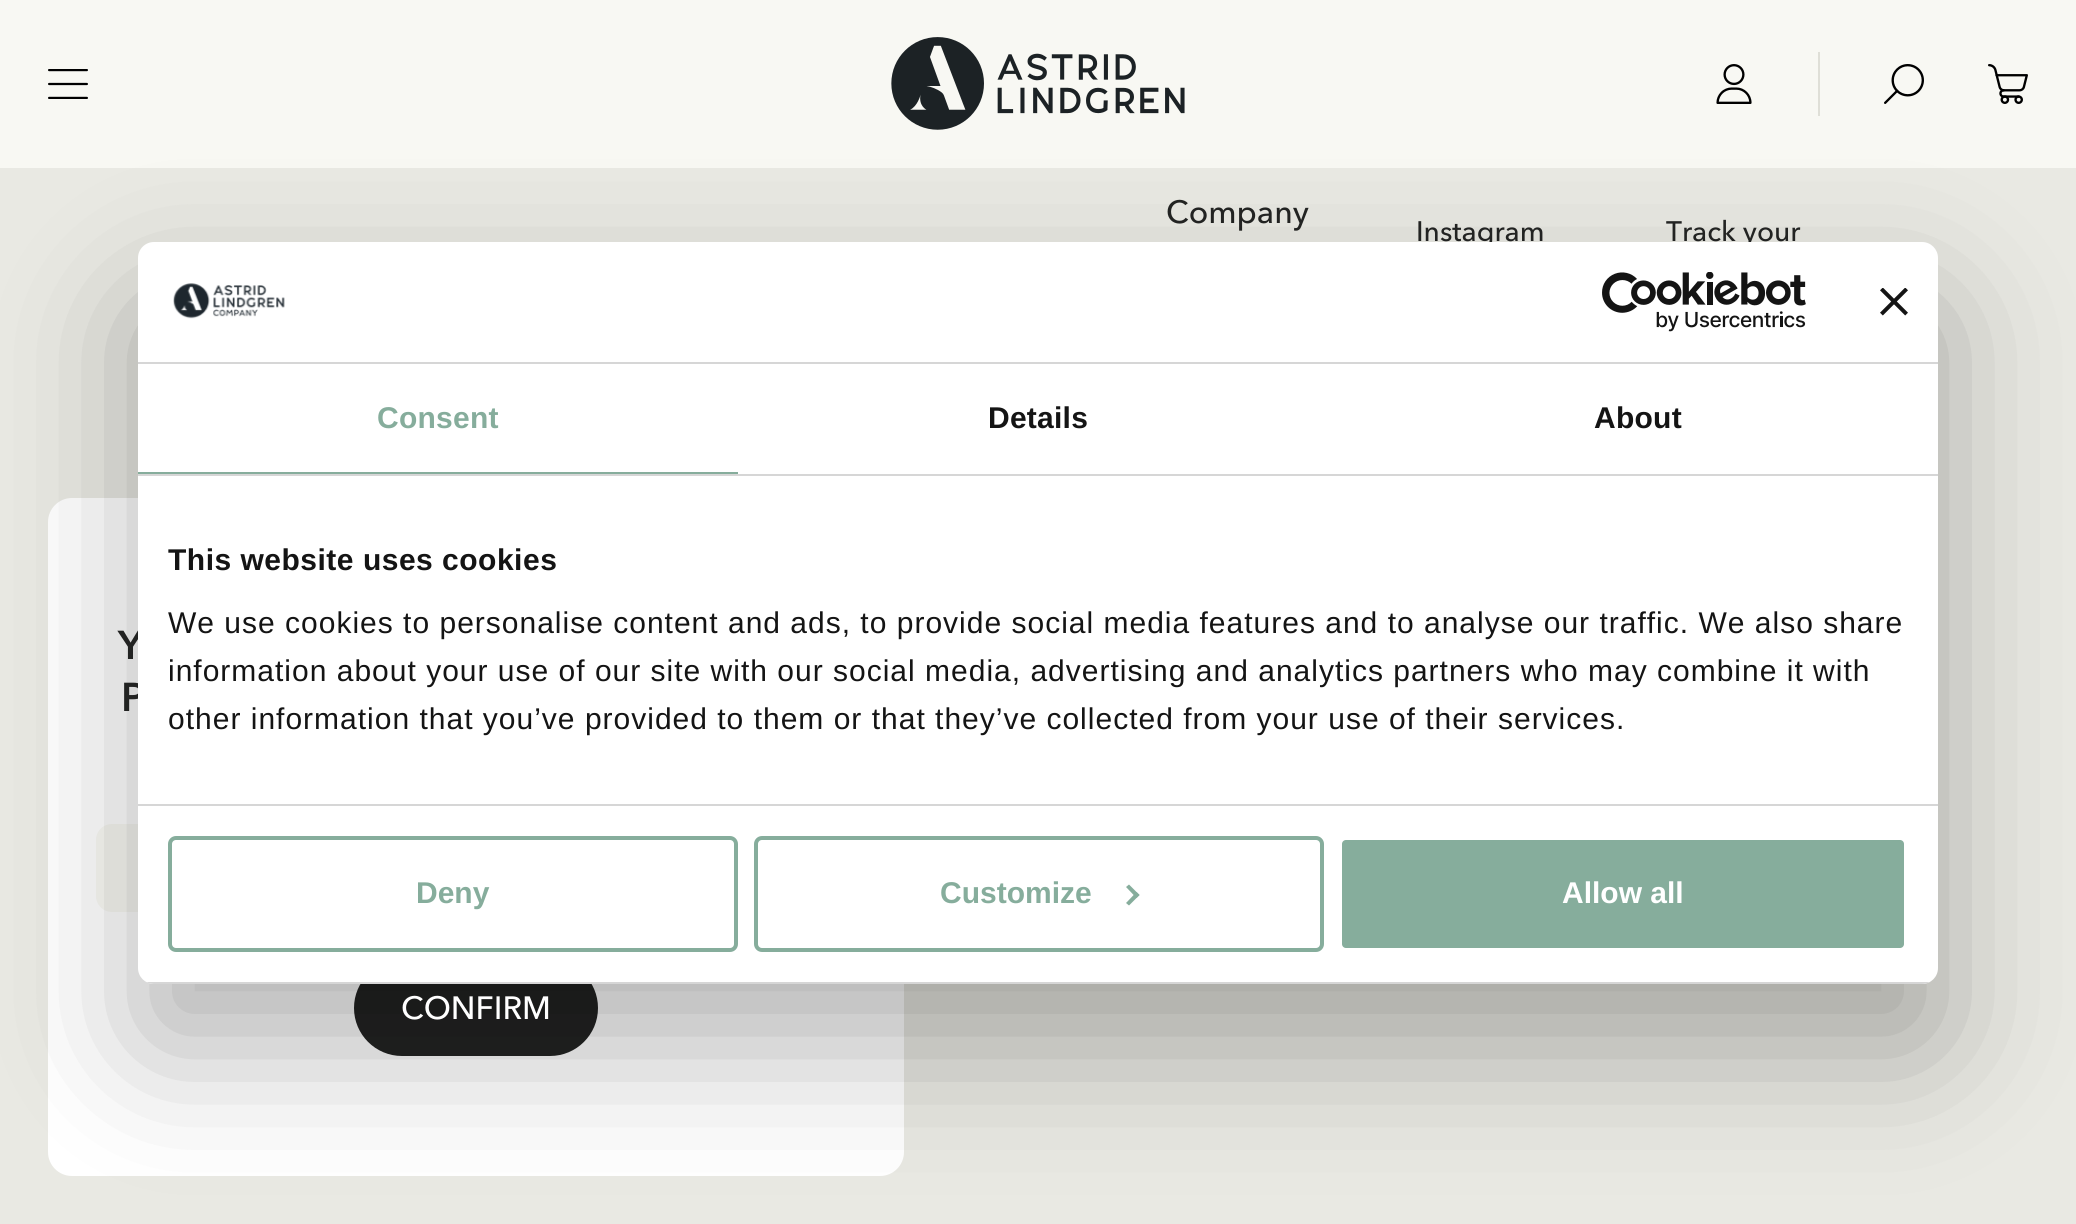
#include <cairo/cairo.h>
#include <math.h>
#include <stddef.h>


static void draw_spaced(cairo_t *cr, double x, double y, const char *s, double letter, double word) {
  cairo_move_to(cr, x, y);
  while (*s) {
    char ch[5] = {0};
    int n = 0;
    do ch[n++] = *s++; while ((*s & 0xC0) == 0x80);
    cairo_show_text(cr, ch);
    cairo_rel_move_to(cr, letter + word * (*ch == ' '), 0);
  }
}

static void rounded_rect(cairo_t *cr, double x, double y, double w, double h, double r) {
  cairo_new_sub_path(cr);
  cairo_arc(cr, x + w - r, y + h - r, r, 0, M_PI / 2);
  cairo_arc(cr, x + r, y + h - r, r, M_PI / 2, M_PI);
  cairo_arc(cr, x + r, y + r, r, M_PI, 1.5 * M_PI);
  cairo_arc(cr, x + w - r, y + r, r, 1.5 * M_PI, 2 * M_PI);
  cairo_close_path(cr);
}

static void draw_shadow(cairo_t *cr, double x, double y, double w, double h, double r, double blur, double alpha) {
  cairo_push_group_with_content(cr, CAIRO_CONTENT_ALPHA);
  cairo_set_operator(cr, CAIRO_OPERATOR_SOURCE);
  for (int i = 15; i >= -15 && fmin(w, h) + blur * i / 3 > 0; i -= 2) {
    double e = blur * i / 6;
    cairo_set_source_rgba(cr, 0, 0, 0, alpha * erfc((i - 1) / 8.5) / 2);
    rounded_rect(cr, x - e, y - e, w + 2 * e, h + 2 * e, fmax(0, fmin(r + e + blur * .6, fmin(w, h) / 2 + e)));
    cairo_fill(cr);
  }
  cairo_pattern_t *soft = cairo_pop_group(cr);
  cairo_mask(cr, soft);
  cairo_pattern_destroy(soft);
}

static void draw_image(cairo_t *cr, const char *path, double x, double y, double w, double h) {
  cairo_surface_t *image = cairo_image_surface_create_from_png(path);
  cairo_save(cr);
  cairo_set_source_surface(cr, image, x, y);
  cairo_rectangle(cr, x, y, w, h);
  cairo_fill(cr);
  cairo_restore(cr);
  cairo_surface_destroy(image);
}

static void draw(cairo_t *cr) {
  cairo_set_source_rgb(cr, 233 / 255.0, 233 / 255.0, 227 / 255.0);
  cairo_paint(cr);
  cairo_set_source_rgb(cr, 248 / 255.0, 248 / 255.0, 243 / 255.0);
  cairo_rectangle(cr, 0, 0, 2076, 168);
  cairo_fill(cr);
  draw_image(cr, "images/1.png", 48, 69, 40, 30);
  draw_image(cr, "images/2.png", 891, 37, 294, 93);
  draw_image(cr, "images/3.png", 1716, 64, 36, 40);
  cairo_set_source_rgb(cr, 223 / 255.0, 223 / 255.0, 215 / 255.0);
  cairo_rectangle(cr, 1818, 52, 2, 64);
  cairo_fill(cr);
  draw_image(cr, "images/4.png", 1884, 64, 40, 40);
  draw_image(cr, "images/5.png", 1988, 64, 40, 40);
  cairo_set_source_rgb(cr, 1, 1, 1);
  rounded_rect(cr, 48, 498, 856, 678, 24);
  cairo_fill(cr);
  cairo_set_source_rgb(cr, 248 / 255.0, 248 / 255.0, 243 / 255.0);
  rounded_rect(cr, 96, 824, 760, 88, 16);
  cairo_fill(cr);
  cairo_set_source_rgb(cr, 34 / 255.0, 35 / 255.0, 34 / 255.0);
  rounded_rect(cr, 354, 960, 244, 96, 48);
  cairo_fill(cr);
  cairo_set_source_rgb(cr, 0, 0, 0);
  draw_shadow(cr, 138, 306, 1800, 742, 16, 68, 0.3);
  cairo_select_font_face(cr, "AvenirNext", CAIRO_FONT_SLANT_NORMAL, CAIRO_FONT_WEIGHT_NORMAL);
  cairo_set_font_size(cr, 32);
  cairo_set_source_rgb(cr, 34 / 255.0, 35 / 255.0, 34 / 255.0);
  cairo_move_to(cr, 1166, 223);
  cairo_show_text(cr, "Company");
  cairo_set_font_size(cr, 28);
  cairo_move_to(cr, 1416, 241);
  cairo_show_text(cr, "Instagram");
  cairo_move_to(cr, 1666, 241);
  cairo_show_text(cr, "Track your");
  cairo_select_font_face(cr, "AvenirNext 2", CAIRO_FONT_SLANT_NORMAL, CAIRO_FONT_WEIGHT_NORMAL);
  cairo_set_font_size(cr, 40);
  cairo_move_to(cr, 118, 659);
  cairo_show_text(cr, "Y");
  cairo_move_to(cr, 121, 711);
  cairo_show_text(cr, "P");
  cairo_set_source_rgb(cr, 1, 1, 1);
  rounded_rect(cr, 138, 242, 1800, 742, 16);
  cairo_fill(cr);
  rounded_rect(cr, 756, 838, 566, 112, 6);
  cairo_set_source_rgb(cr, 134 / 255.0, 173 / 255.0, 156 / 255.0);
  cairo_set_line_width(cr, 4);
  cairo_stroke(cr);
  cairo_new_path(cr);
  cairo_move_to(cr, 1129, 884.5);
  cairo_line_to(cr, 1139.5, 895);
  cairo_line_to(cr, 1136.5, 898);
  cairo_line_to(cr, 1126, 887);
  cairo_close_path(cr);
  cairo_fill(cr);
  cairo_new_path(cr);
  cairo_move_to(cr, 1136.5, 892);
  cairo_line_to(cr, 1139.5, 895);
  cairo_line_to(cr, 1129, 905.5);
  cairo_line_to(cr, 1126, 903);
  cairo_close_path(cr);
  cairo_fill(cr);
  rounded_rect(cr, 1340, 838, 566, 112, 6);
  cairo_fill_preserve(cr);
  cairo_set_source_rgb(cr, 1, 1, 1);
  cairo_stroke(cr);
  cairo_select_font_face(cr, "Liberation Sans", CAIRO_FONT_SLANT_NORMAL, CAIRO_FONT_WEIGHT_BOLD);
  cairo_set_font_size(cr, 30);
  cairo_move_to(cr, 1562, 903);
  cairo_show_text(cr, "Allow all");
  cairo_set_source_rgb(cr, 134 / 255.0, 173 / 255.0, 156 / 255.0);
  cairo_move_to(cr, 940, 903);
  cairo_show_text(cr, "Customize");
  rounded_rect(cr, 170, 838, 566, 112, 6);
  cairo_stroke(cr);
  cairo_move_to(cr, 416, 903);
  cairo_show_text(cr, "Deny");
  cairo_save(cr);
  rounded_rect(cr, 138, 242, 1800, 742, 16);
  cairo_clip(cr);
  cairo_set_source_rgb(cr, 214 / 255.0, 214 / 255.0, 214 / 255.0);
  cairo_rectangle(cr, 138, 982, 1800, 2);
  cairo_fill(cr);
  cairo_restore(cr);
  cairo_select_font_face(cr, "Liberation Sans", CAIRO_FONT_SLANT_NORMAL, CAIRO_FONT_WEIGHT_NORMAL);
  cairo_set_source_rgb(cr, 20 / 255.0, 20 / 255.0, 20 / 255.0);
  draw_spaced(cr, 168, 729, "other information that you’ve provided to them or that they’ve collected from your use of their services.", 1, 0);
  draw_spaced(cr, 168, 681, "information about your use of our site with our social media, advertising and analytics partners who may combine it with", 1, 0);
  draw_spaced(cr, 168, 633, "We use cookies to personalise content and ads, to provide social media features and to analyse our traffic. We also share", 1, 0);
  cairo_select_font_face(cr, "Liberation Sans", CAIRO_FONT_SLANT_NORMAL, CAIRO_FONT_WEIGHT_BOLD);
  draw_spaced(cr, 168, 570, "This website uses cookies", 0.5, 0);
  cairo_set_source_rgb(cr, 214 / 255.0, 214 / 255.0, 214 / 255.0);
  cairo_rectangle(cr, 138, 804, 1800, 2);
  cairo_fill(cr);
  cairo_set_source_rgb(cr, 20 / 255.0, 20 / 255.0, 20 / 255.0);
  draw_spaced(cr, 1594, 428, "About", 0.25, 0);
  draw_spaced(cr, 988, 428, "Details", 0.25, 0);
  cairo_set_source_rgb(cr, 134 / 255.0, 173 / 255.0, 156 / 255.0);
  draw_spaced(cr, 377, 428, "Consent", 0.25, 0);
  cairo_rectangle(cr, 138, 472, 600, 2);
  cairo_fill(cr);
  cairo_set_source_rgb(cr, 214 / 255.0, 214 / 255.0, 214 / 255.0);
  cairo_rectangle(cr, 138, 474, 1800, 2);
  cairo_fill(cr);
  draw_image(cr, "images/8.png", 1880, 288, 28, 28);
  draw_image(cr, "images/7.png", 1602, 272, 204, 60);
  draw_image(cr, "images/6.png", 173, 283, 112, 36);
  cairo_rectangle(cr, 138, 362, 1800, 2);
  cairo_fill(cr);
  cairo_select_font_face(cr, "AvenirNext", CAIRO_FONT_SLANT_NORMAL, CAIRO_FONT_WEIGHT_NORMAL);
  cairo_set_font_size(cr, 32);
  cairo_set_source_rgb(cr, 1, 1, 1);
  cairo_move_to(cr, 401, 1019);
  cairo_show_text(cr, "CONFIRM");
}

int main(void) {
  cairo_surface_t *surface = cairo_image_surface_create(CAIRO_FORMAT_RGB24, 2076, 1224);
  cairo_t *cr = cairo_create(surface);
  cairo_font_options_t *options = cairo_font_options_create();
  cairo_font_options_set_hint_metrics(options, CAIRO_HINT_METRICS_OFF);
  cairo_font_options_set_hint_style(options, CAIRO_HINT_STYLE_NONE);
  cairo_set_font_options(cr, options);
  cairo_set_miter_limit(cr, 4);
  draw(cr);
  cairo_surface_write_to_png(surface, "out.png");
  cairo_font_options_destroy(options);
  cairo_destroy(cr);
  cairo_surface_destroy(surface);
  return 0;
}
